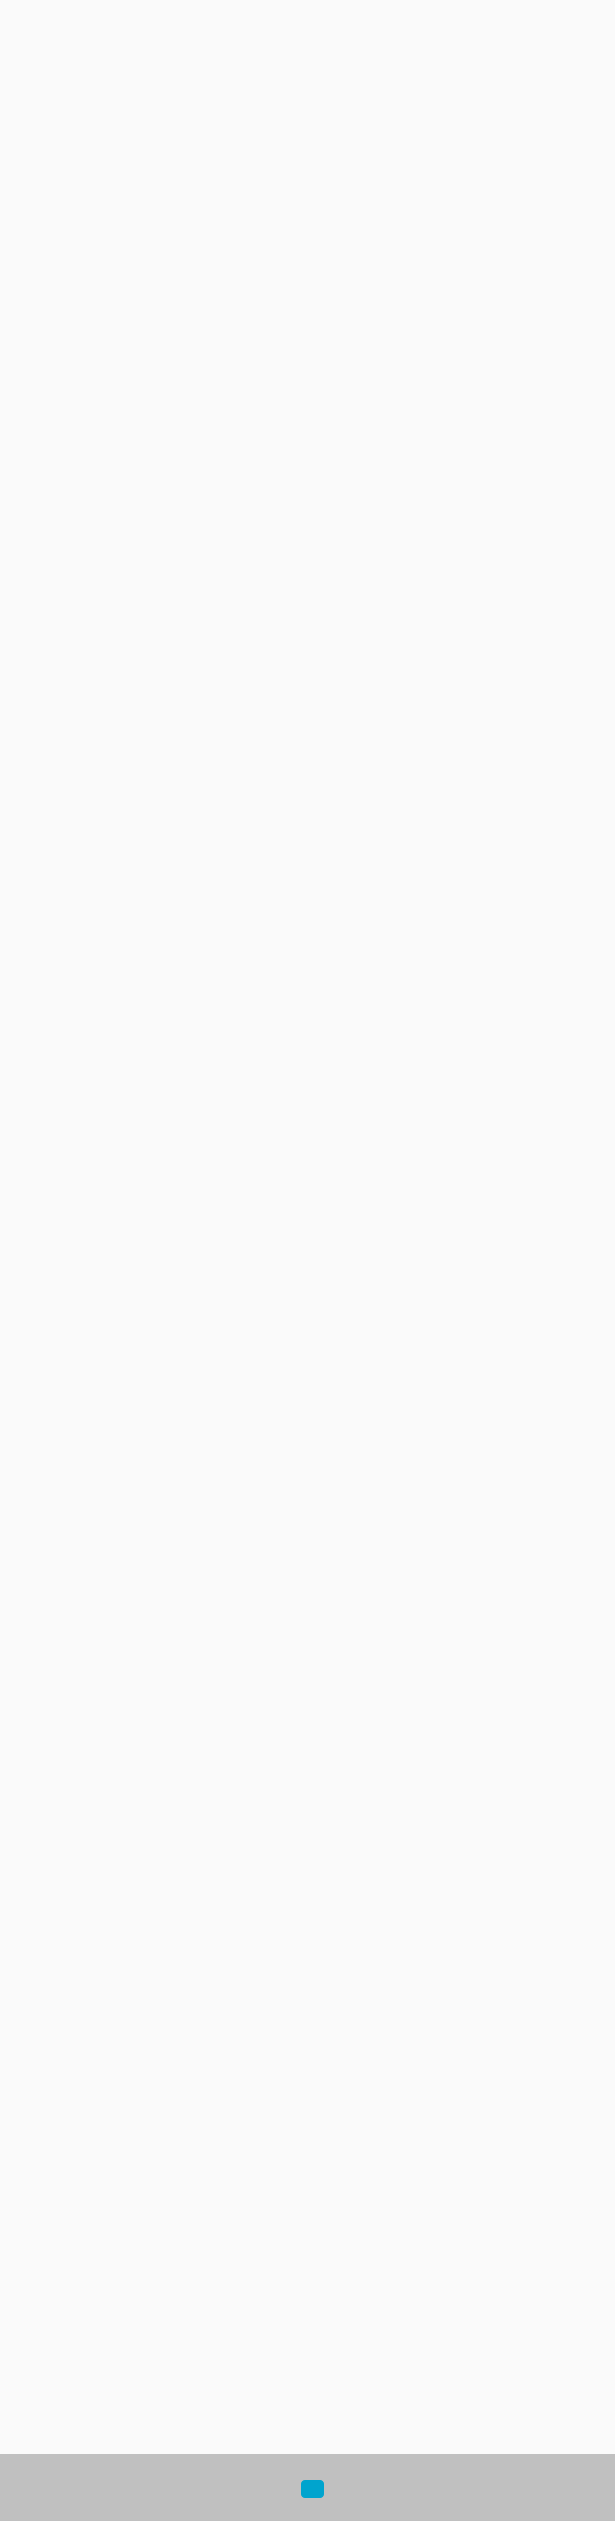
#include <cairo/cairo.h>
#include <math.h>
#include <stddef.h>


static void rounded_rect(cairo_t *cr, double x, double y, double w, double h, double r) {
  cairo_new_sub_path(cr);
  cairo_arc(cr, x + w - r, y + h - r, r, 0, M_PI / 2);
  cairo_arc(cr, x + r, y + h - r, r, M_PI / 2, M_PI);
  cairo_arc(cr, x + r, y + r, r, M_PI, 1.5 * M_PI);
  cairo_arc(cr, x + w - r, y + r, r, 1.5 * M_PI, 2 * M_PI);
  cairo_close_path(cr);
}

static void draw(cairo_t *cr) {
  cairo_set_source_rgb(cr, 250 / 255.0, 250 / 255.0, 250 / 255.0);
  cairo_paint(cr);
  cairo_set_source_rgb(cr, 192 / 255.0, 192 / 255.0, 192 / 255.0);
  cairo_rectangle(cr, 0, 2454, 615, 67);
  cairo_fill(cr);
  cairo_set_source_rgb(cr, 0, 164 / 255.0, 206 / 255.0);
  rounded_rect(cr, 301.5, 2480.5, 22, 17, 3.5);
  cairo_fill_preserve(cr);
  cairo_set_line_width(cr, 1);
  cairo_stroke(cr);
}

int main(void) {
  cairo_surface_t *surface = cairo_image_surface_create(CAIRO_FORMAT_RGB24, 615, 2521);
  cairo_t *cr = cairo_create(surface);
  cairo_font_options_t *options = cairo_font_options_create();
  cairo_font_options_set_hint_metrics(options, CAIRO_HINT_METRICS_OFF);
  cairo_font_options_set_hint_style(options, CAIRO_HINT_STYLE_NONE);
  cairo_set_font_options(cr, options);
  cairo_set_miter_limit(cr, 4);
  draw(cr);
  cairo_surface_write_to_png(surface, "out.png");
  cairo_font_options_destroy(options);
  cairo_destroy(cr);
  cairo_surface_destroy(surface);
  return 0;
}
